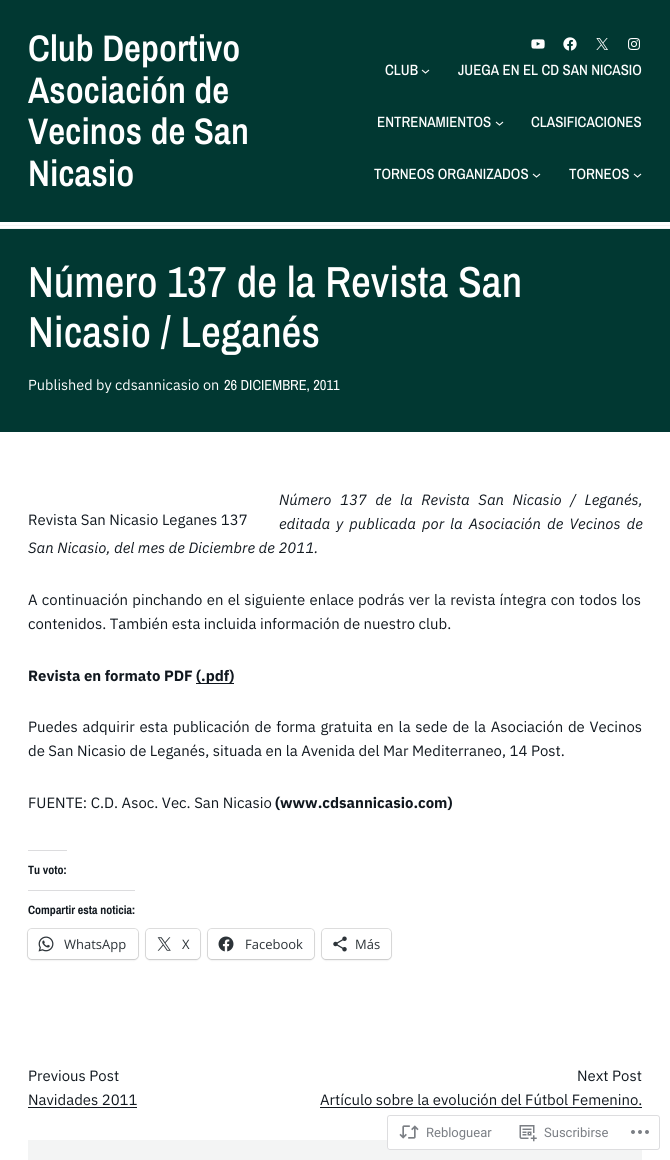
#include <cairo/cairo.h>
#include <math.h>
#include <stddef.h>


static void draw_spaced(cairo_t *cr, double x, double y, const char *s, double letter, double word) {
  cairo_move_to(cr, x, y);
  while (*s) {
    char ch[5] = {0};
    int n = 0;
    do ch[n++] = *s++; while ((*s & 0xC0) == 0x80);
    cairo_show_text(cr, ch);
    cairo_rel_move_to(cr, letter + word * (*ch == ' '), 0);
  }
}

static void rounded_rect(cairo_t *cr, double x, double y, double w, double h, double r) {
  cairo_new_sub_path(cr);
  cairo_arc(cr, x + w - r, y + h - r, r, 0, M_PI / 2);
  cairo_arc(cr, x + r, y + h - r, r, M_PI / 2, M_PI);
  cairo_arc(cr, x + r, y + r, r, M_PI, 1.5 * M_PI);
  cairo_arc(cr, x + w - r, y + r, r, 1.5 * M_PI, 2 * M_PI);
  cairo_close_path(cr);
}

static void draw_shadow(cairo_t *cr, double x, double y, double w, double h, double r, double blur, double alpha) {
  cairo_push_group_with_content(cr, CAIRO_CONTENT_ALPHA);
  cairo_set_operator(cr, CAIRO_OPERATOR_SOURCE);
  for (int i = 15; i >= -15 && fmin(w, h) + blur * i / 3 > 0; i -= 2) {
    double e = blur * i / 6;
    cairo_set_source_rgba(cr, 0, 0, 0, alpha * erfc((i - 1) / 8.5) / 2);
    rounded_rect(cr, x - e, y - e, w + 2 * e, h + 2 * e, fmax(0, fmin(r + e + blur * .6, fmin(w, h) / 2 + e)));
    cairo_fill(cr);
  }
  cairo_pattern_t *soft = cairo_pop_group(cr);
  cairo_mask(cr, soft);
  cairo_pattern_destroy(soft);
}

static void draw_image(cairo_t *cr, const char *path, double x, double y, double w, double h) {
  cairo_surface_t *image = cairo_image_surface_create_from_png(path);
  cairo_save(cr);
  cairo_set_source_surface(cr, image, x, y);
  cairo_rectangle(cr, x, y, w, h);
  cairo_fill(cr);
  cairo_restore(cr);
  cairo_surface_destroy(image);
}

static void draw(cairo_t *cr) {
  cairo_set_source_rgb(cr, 1, 1, 1);
  cairo_paint(cr);
  cairo_set_source_rgb(cr, 1 / 255.0, 56 / 255.0, 50 / 255.0);
  cairo_rectangle(cr, 0, 0, 670, 222);
  cairo_fill(cr);
  draw_image(cr, "images/1.png", 531, 39, 14, 10);
  draw_image(cr, "images/2.png", 563, 37, 14, 14);
  draw_image(cr, "images/3.png", 596, 38, 12, 12);
  draw_image(cr, "images/4.png", 628, 38, 12, 12);
  cairo_new_path(cr);
  cairo_move_to(cr, 422, 70);
  cairo_line_to(cr, 425.5, 73);
  cairo_line_to(cr, 429, 70);
  cairo_set_source_rgb(cr, 1, 1, 1);
  cairo_set_line_width(cr, 1.1);
  cairo_stroke(cr);
  cairo_new_path(cr);
  cairo_move_to(cr, 496, 122);
  cairo_line_to(cr, 499.5, 125);
  cairo_line_to(cr, 503, 122);
  cairo_move_to(cr, 533, 174);
  cairo_line_to(cr, 536.5, 177);
  cairo_line_to(cr, 540, 174);
  cairo_stroke(cr);
  cairo_new_path(cr);
  cairo_move_to(cr, 634, 174);
  cairo_line_to(cr, 637.5, 177);
  cairo_line_to(cr, 641, 174);
  cairo_stroke(cr);
  cairo_set_source_rgb(cr, 243 / 255.0, 244 / 255.0, 244 / 255.0);
  cairo_rectangle(cr, 0, 225, 670, 1);
  cairo_fill(cr);
  cairo_rectangle(cr, 0, 228, 670, 1);
  cairo_fill(cr);
  cairo_set_source_rgb(cr, 1 / 255.0, 56 / 255.0, 50 / 255.0);
  cairo_rectangle(cr, 0, 229, 670, 203);
  cairo_fill(cr);
  cairo_set_source_rgb(cr, 17 / 255.0, 24 / 255.0, 31 / 255.0);
  cairo_rectangle(cr, 196, 683, 38, 1);
  cairo_fill(cr);
  cairo_set_source_rgb(cr, 220 / 255.0, 220 / 255.0, 222 / 255.0);
  cairo_rectangle(cr, 28, 850, 39, 1);
  cairo_fill(cr);
  cairo_rectangle(cr, 28, 890, 107, 1);
  cairo_fill(cr);
  rounded_rect(cr, 27.5, 928.5, 111, 31, 4.5);
  cairo_set_source_rgb(cr, 224 / 255.0, 224 / 255.0, 224 / 255.0);
  cairo_set_line_width(cr, 1);
  cairo_stroke(cr);
  cairo_set_source_rgb(cr, 0, 0, 0);
  draw_shadow(cr, 28, 930, 110, 30, 4, 1, 0.12);
  cairo_set_source_rgb(cr, 1, 1, 1);
  rounded_rect(cr, 28, 929, 110, 30, 4);
  cairo_fill(cr);
  draw_image(cr, "images/5.png", 38, 936, 16, 16);
  rounded_rect(cr, 145.5, 928.5, 55, 31, 4.5);
  cairo_set_source_rgb(cr, 224 / 255.0, 224 / 255.0, 224 / 255.0);
  cairo_stroke(cr);
  cairo_set_source_rgb(cr, 0, 0, 0);
  draw_shadow(cr, 146, 930, 54, 30, 4, 1, 0.12);
  cairo_set_source_rgb(cr, 1, 1, 1);
  rounded_rect(cr, 146, 929, 54, 30, 4);
  cairo_fill(cr);
  draw_image(cr, "images/6.png", 157, 937, 14, 14);
  rounded_rect(cr, 207.5, 928.5, 107, 31, 4.5);
  cairo_set_source_rgb(cr, 224 / 255.0, 224 / 255.0, 224 / 255.0);
  cairo_stroke(cr);
  cairo_set_source_rgb(cr, 0, 0, 0);
  draw_shadow(cr, 208, 930, 106, 30, 4, 1, 0.12);
  cairo_set_source_rgb(cr, 1, 1, 1);
  rounded_rect(cr, 208, 929, 106, 30, 4);
  cairo_fill(cr);
  draw_image(cr, "images/7.png", 218, 936, 16, 16);
  rounded_rect(cr, 321.5, 928.5, 70, 31, 4.5);
  cairo_set_source_rgb(cr, 224 / 255.0, 224 / 255.0, 224 / 255.0);
  cairo_stroke(cr);
  cairo_set_source_rgb(cr, 0, 0, 0);
  draw_shadow(cr, 322, 930, 69, 30, 4, 1, 0.12);
  cairo_set_source_rgb(cr, 1, 1, 1);
  rounded_rect(cr, 322, 929, 69, 30, 4);
  cairo_fill(cr);
  draw_image(cr, "images/8.png", 333, 936, 14, 16);
  cairo_set_source_rgb(cr, 17 / 255.0, 24 / 255.0, 31 / 255.0);
  cairo_rectangle(cr, 28, 1107, 109, 1);
  cairo_fill(cr);
  cairo_rectangle(cr, 320, 1107, 322, 1);
  cairo_fill(cr);
  cairo_set_source_rgb(cr, 243 / 255.0, 244 / 255.0, 244 / 255.0);
  cairo_rectangle(cr, 28, 1140, 614, 20);
  cairo_fill(cr);
  cairo_set_source_rgba(cr, 1, 1, 1, 0.98);
  rounded_rect(cr, 387, 1115, 273, 35, 3);
  cairo_fill(cr);
  rounded_rect(cr, 387.5, 1115.5, 272, 34, 2.5);
  cairo_set_source_rgba(cr, 220 / 255.0, 220 / 255.0, 222 / 255.0, 0.98);
  cairo_stroke(cr);
  draw_image(cr, "images/9.png", 399, 1125, 20, 14);
  draw_image(cr, "images/10.png", 519, 1125, 18, 17);
  draw_image(cr, "images/11.png", 631, 1130, 18, 4);
  cairo_select_font_face(cr, "Archivo Narrow SemiBold", CAIRO_FONT_SLANT_NORMAL, CAIRO_FONT_WEIGHT_NORMAL);
  cairo_set_font_size(cr, 37);
  cairo_set_source_rgb(cr, 1, 1, 1);
  cairo_move_to(cr, 28, 61);
  cairo_show_text(cr, "Club Deportivo");
  cairo_move_to(cr, 28, 103);
  cairo_show_text(cr, "Asociación de");
  cairo_move_to(cr, 28, 144);
  cairo_show_text(cr, "Vecinos de San");
  cairo_move_to(cr, 28, 186);
  cairo_show_text(cr, "Nicasio");
  cairo_select_font_face(cr, "Archivo Narrow Medium", CAIRO_FONT_SLANT_NORMAL, CAIRO_FONT_WEIGHT_NORMAL);
  cairo_set_font_size(cr, 14.9);
  cairo_move_to(cr, 385, 75);
  cairo_show_text(cr, "CLUB");
  cairo_move_to(cr, 458, 75);
  cairo_show_text(cr, "JUEGA EN EL CD SAN NICASIO");
  cairo_move_to(cr, 377, 127);
  cairo_show_text(cr, "ENTRENAMIENTOS");
  cairo_move_to(cr, 531, 127);
  cairo_show_text(cr, "CLASIFICACIONES");
  cairo_move_to(cr, 374, 179);
  cairo_show_text(cr, "TORNEOS ORGANIZADOS");
  cairo_move_to(cr, 569, 179);
  cairo_show_text(cr, "TORNEOS");
  cairo_set_font_size(cr, 43.5);
  cairo_move_to(cr, 28, 297);
  cairo_show_text(cr, "Número 137 de la Revista San");
  cairo_move_to(cr, 28, 347);
  cairo_show_text(cr, "Nicasio / Leganés");
  cairo_select_font_face(cr, "IBM Plex Sans", CAIRO_FONT_SLANT_NORMAL, CAIRO_FONT_WEIGHT_NORMAL);
  cairo_set_font_size(cr, 14.5);
  cairo_move_to(cr, 28, 390);
  cairo_show_text(cr, "Published by");
  cairo_move_to(cr, 115, 390);
  cairo_show_text(cr, "cdsannicasio");
  cairo_move_to(cr, 203, 390);
  cairo_show_text(cr, "on");
  cairo_select_font_face(cr, "Archivo Narrow", CAIRO_FONT_SLANT_NORMAL, CAIRO_FONT_WEIGHT_NORMAL);
  cairo_move_to(cr, 224, 390);
  cairo_show_text(cr, "26 DICIEMBRE, 2011");
  cairo_select_font_face(cr, "IBM Plex Sans", CAIRO_FONT_SLANT_ITALIC, CAIRO_FONT_WEIGHT_NORMAL);
  cairo_set_font_size(cr, 14.9);
  cairo_set_source_rgb(cr, 17 / 255.0, 24 / 255.0, 31 / 255.0);
  draw_spaced(cr, 279, 505, "Número 137 de la Revista San Nicasio / Leganés,", 0, 5);
  draw_spaced(cr, 279, 529, "editada y publicada por la Asociación de Vecinos de", 0, 2.5);
  cairo_move_to(cr, 28, 553);
  cairo_show_text(cr, "San Nicasio, del mes de Diciembre de 2011.");
  cairo_select_font_face(cr, "IBM Plex Sans", CAIRO_FONT_SLANT_NORMAL, CAIRO_FONT_WEIGHT_NORMAL);
  cairo_move_to(cr, 28, 525);
  cairo_show_text(cr, "Revista San Nicasio Leganes 137");
  draw_spaced(cr, 28, 605, "A continuación pinchando en el siguiente enlace podrás ver la revista íntegra con todos los", 0, 0.75);
  cairo_move_to(cr, 28, 629);
  cairo_show_text(cr, "contenidos. También esta incluida información de nuestro club.");
  cairo_select_font_face(cr, "IBM Plex Sans", CAIRO_FONT_SLANT_NORMAL, CAIRO_FONT_WEIGHT_BOLD);
  cairo_move_to(cr, 28, 681);
  cairo_show_text(cr, "Revista en formato PDF");
  cairo_move_to(cr, 196, 681);
  cairo_show_text(cr, "(.pdf)");
  cairo_select_font_face(cr, "IBM Plex Sans", CAIRO_FONT_SLANT_NORMAL, CAIRO_FONT_WEIGHT_NORMAL);
  draw_spaced(cr, 28, 732, "Puedes adquirir esta publicación de forma gratuita en la sede de la Asociación de Vecinos", 0, 1.25);
  cairo_move_to(cr, 28, 756);
  cairo_show_text(cr, "de San Nicasio de Leganés, situada en la Avenida del Mar Mediterraneo, 14 Post.");
  cairo_move_to(cr, 28, 808);
  cairo_show_text(cr, "FUENTE: C.D. Asoc. Vec. San Nicasio");
  cairo_select_font_face(cr, "IBM Plex Sans", CAIRO_FONT_SLANT_NORMAL, CAIRO_FONT_WEIGHT_BOLD);
  cairo_move_to(cr, 275, 808);
  cairo_show_text(cr, "(www.cdsannicasio.com)");
  cairo_select_font_face(cr, "Archivo Narrow", CAIRO_FONT_SLANT_NORMAL, CAIRO_FONT_WEIGHT_BOLD);
  cairo_set_font_size(cr, 12);
  cairo_move_to(cr, 28, 874);
  cairo_show_text(cr, "Tu voto:");
  cairo_move_to(cr, 28, 914);
  cairo_show_text(cr, "Compartir esta noticia:");
  cairo_select_font_face(cr, "Open Sans", CAIRO_FONT_SLANT_NORMAL, CAIRO_FONT_WEIGHT_NORMAL);
  cairo_set_font_size(cr, 13);
  cairo_set_source_rgb(cr, 44 / 255.0, 51 / 255.0, 56 / 255.0);
  cairo_move_to(cr, 64, 949);
  cairo_show_text(cr, "WhatsApp");
  cairo_move_to(cr, 182, 949);
  cairo_show_text(cr, "X");
  cairo_move_to(cr, 245, 949);
  cairo_show_text(cr, "Facebook");
  cairo_move_to(cr, 355, 949);
  cairo_show_text(cr, "Más");
  cairo_select_font_face(cr, "IBM Plex Sans", CAIRO_FONT_SLANT_NORMAL, CAIRO_FONT_WEIGHT_NORMAL);
  cairo_set_font_size(cr, 14.9);
  cairo_set_source_rgb(cr, 17 / 255.0, 24 / 255.0, 31 / 255.0);
  cairo_move_to(cr, 28, 1081);
  cairo_show_text(cr, "Previous Post");
  cairo_move_to(cr, 28, 1105);
  cairo_show_text(cr, "Navidades 2011");
  cairo_move_to(cr, 577, 1081);
  cairo_show_text(cr, "Next Post");
  cairo_move_to(cr, 320, 1105);
  cairo_show_text(cr, "Artículo sobre la evolución del Fútbol Femenino.");
  cairo_select_font_face(cr, "Roboto", CAIRO_FONT_SLANT_NORMAL, CAIRO_FONT_WEIGHT_NORMAL);
  cairo_set_font_size(cr, 13);
  cairo_set_source_rgb(cr, 123 / 255.0, 127 / 255.0, 133 / 255.0);
  cairo_move_to(cr, 426, 1137);
  cairo_show_text(cr, "Rebloguear");
  cairo_move_to(cr, 544, 1137);
  cairo_show_text(cr, "Suscribirse");
}

int main(void) {
  cairo_surface_t *surface = cairo_image_surface_create(CAIRO_FORMAT_RGB24, 670, 1160);
  cairo_t *cr = cairo_create(surface);
  cairo_font_options_t *options = cairo_font_options_create();
  cairo_font_options_set_hint_metrics(options, CAIRO_HINT_METRICS_OFF);
  cairo_font_options_set_hint_style(options, CAIRO_HINT_STYLE_NONE);
  cairo_set_font_options(cr, options);
  cairo_set_miter_limit(cr, 4);
  draw(cr);
  cairo_surface_write_to_png(surface, "out.png");
  cairo_font_options_destroy(options);
  cairo_destroy(cr);
  cairo_surface_destroy(surface);
  return 0;
}
